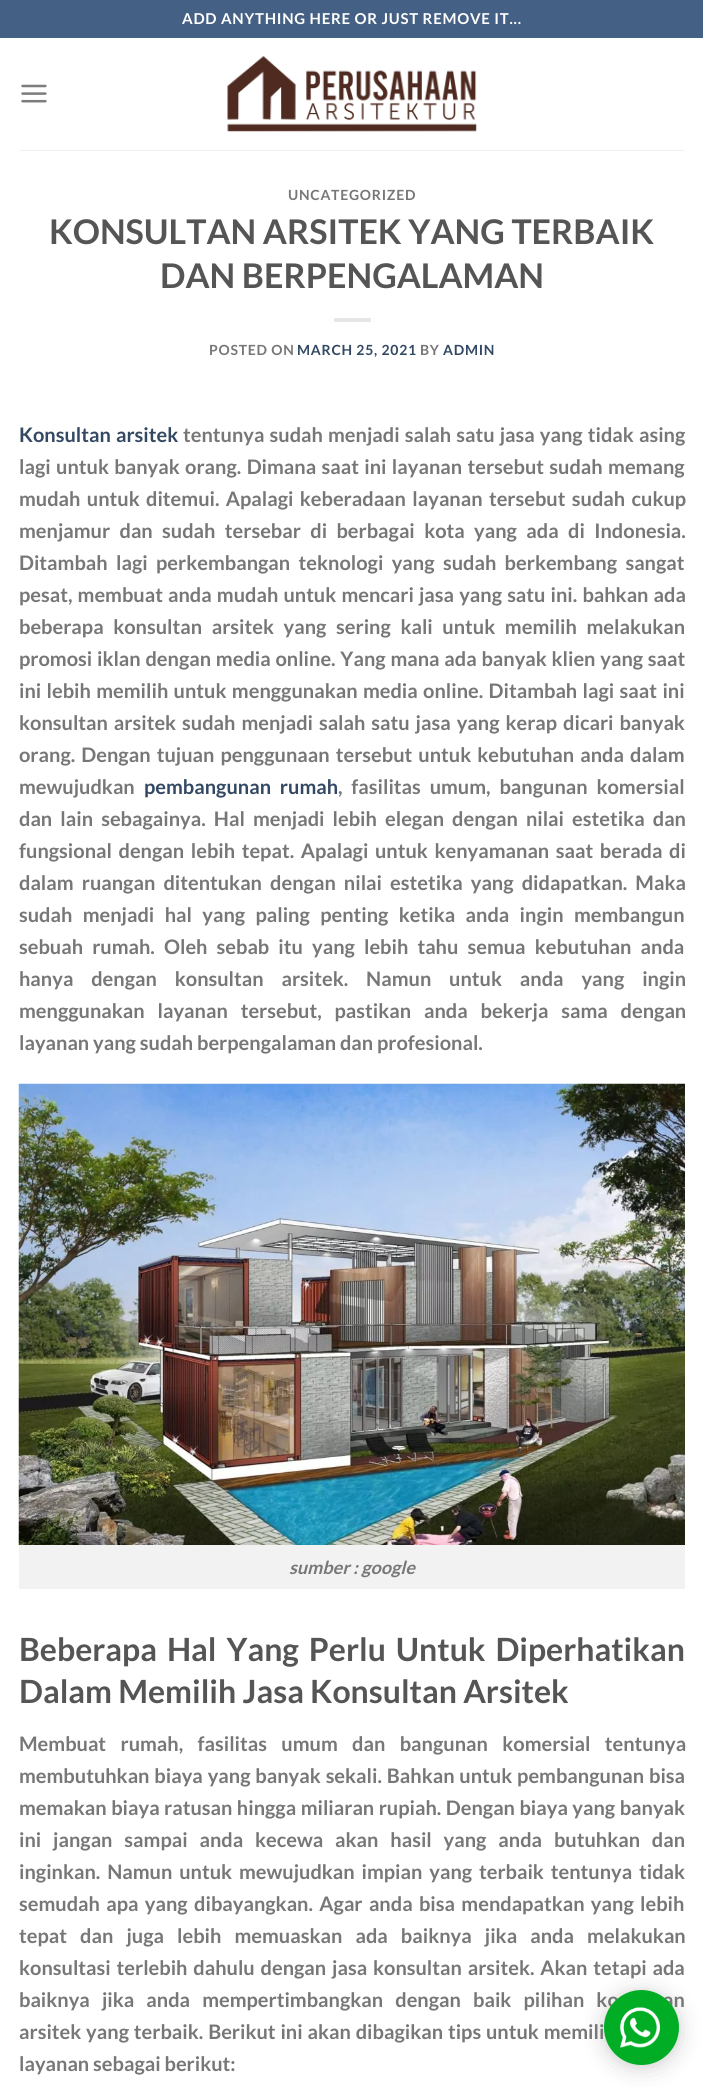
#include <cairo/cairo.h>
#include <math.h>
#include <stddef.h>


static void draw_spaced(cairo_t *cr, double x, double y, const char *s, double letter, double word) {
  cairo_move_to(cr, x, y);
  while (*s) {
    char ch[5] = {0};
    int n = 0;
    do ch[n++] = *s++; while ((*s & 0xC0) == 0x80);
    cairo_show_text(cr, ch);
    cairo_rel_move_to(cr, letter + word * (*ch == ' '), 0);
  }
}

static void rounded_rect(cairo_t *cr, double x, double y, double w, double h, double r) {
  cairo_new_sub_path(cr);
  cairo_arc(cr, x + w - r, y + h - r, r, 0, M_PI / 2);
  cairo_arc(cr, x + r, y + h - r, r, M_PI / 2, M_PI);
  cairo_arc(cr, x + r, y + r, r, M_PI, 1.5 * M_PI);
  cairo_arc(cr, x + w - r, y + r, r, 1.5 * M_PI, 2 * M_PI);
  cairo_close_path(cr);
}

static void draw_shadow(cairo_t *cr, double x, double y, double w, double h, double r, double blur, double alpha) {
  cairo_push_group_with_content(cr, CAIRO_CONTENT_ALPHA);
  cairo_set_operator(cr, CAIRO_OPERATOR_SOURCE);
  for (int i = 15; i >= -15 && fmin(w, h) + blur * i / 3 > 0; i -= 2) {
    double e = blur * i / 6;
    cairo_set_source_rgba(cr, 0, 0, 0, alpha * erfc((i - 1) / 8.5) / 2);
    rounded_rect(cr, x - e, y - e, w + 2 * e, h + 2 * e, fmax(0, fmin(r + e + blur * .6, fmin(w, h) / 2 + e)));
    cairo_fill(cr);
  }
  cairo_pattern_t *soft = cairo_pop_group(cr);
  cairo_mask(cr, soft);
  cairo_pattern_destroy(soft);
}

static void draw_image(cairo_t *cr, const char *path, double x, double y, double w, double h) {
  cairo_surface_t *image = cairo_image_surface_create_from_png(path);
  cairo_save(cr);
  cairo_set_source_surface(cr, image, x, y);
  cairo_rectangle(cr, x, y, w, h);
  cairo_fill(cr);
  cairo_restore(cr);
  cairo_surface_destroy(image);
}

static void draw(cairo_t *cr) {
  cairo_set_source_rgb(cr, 1, 1, 1);
  cairo_paint(cr);
  cairo_set_source_rgb(cr, 68 / 255.0, 96 / 255.0, 132 / 255.0);
  cairo_rectangle(cr, 0, 0, 703, 38);
  cairo_fill(cr);
  draw_image(cr, "images/1.png", 21, 84, 26, 19);
  draw_image(cr, "images/2.png", 227, 56, 250, 76);
  cairo_set_source_rgb(cr, 241 / 255.0, 241 / 255.0, 241 / 255.0);
  cairo_rectangle(cr, 19, 150, 666, 1);
  cairo_fill(cr);
  cairo_set_source_rgb(cr, 230 / 255.0, 230 / 255.0, 230 / 255.0);
  cairo_rectangle(cr, 334, 318, 37, 4);
  cairo_fill(cr);
  draw_image(cr, "images/3.png", 18, 1083, 667, 462);
  cairo_set_source_rgb(cr, 242 / 255.0, 242 / 255.0, 242 / 255.0);
  cairo_rectangle(cr, 19, 1545, 666, 44);
  cairo_fill(cr);
  cairo_set_source_rgb(cr, 0, 0, 0);
  draw_shadow(cr, 604, 1993, 75, 75, 37.5, 12.5, 0.16);
  draw_shadow(cr, 604, 1991, 75, 75, 37.5, 4, 0.06);
  cairo_select_font_face(cr, "Lato", CAIRO_FONT_SLANT_NORMAL, CAIRO_FONT_WEIGHT_BOLD);
  cairo_set_font_size(cr, 15);
  cairo_set_source_rgb(cr, 1, 1, 1);
  draw_spaced(cr, 182, 24, "ADD ANYTHING HERE OR JUST REMOVE IT...", 0.75, 0);
  cairo_set_font_size(cr, 14);
  cairo_set_source_rgb(cr, 119 / 255.0, 119 / 255.0, 119 / 255.0);
  draw_spaced(cr, 288, 200, "UNCATEGORIZED", 0.75, 0);
  cairo_set_font_size(cr, 34);
  cairo_set_source_rgb(cr, 85 / 255.0, 85 / 255.0, 85 / 255.0);
  cairo_move_to(cr, 49, 244);
  cairo_show_text(cr, "KONSULTAN ARSITEK YANG TERBAIK");
  cairo_move_to(cr, 160, 288);
  cairo_show_text(cr, "DAN BERPENGALAMAN");
  cairo_set_font_size(cr, 14);
  cairo_set_source_rgb(cr, 119 / 255.0, 119 / 255.0, 119 / 255.0);
  draw_spaced(cr, 209, 355, "POSTED ON", 0.75, 0);
  cairo_set_source_rgb(cr, 51 / 255.0, 72 / 255.0, 98 / 255.0);
  draw_spaced(cr, 297, 355, "MARCH 25, 2021", 0.75, 0);
  cairo_set_source_rgb(cr, 119 / 255.0, 119 / 255.0, 119 / 255.0);
  draw_spaced(cr, 420, 355, "BY", 0.75, 0);
  cairo_set_source_rgb(cr, 51 / 255.0, 72 / 255.0, 98 / 255.0);
  draw_spaced(cr, 443, 355, "ADMIN", 0.75, 0);
  cairo_set_font_size(cr, 20);
  draw_spaced(cr, 19, 442, "Konsultan arsitek", 0, 1.25);
  cairo_set_source_rgb(cr, 119 / 255.0, 119 / 255.0, 119 / 255.0);
  draw_spaced(cr, 183, 442, "tentunya sudah menjadi salah satu jasa yang tidak asing", 0, 1.25);
  draw_spaced(cr, 19, 474, "lagi untuk banyak orang. Dimana saat ini layanan tersebut sudah memang", 0, 1.5);
  draw_spaced(cr, 19, 506, "mudah untuk ditemui. Apalagi keberadaan layanan tersebut sudah cukup", 0, 2.5);
  draw_spaced(cr, 19, 538, "menjamur dan sudah tersebar di berbagai kota yang ada di Indonesia.", 0, 5.5);
  draw_spaced(cr, 19, 570, "Ditambah lagi perkembangan teknologi yang sudah berkembang sangat", 0, 4.5);
  draw_spaced(cr, 19, 602, "pesat, membuat anda mudah untuk mencari jasa yang satu ini. bahkan ada", 0, 1.25);
  draw_spaced(cr, 19, 634, "beberapa konsultan arsitek yang sering kali untuk memilih melakukan", 0, 5.75);
  draw_spaced(cr, 19, 666, "promosi iklan dengan media online. Yang mana ada banyak klien yang saat", 0, 0.9);
  draw_spaced(cr, 19, 698, "ini lebih memilih untuk menggunakan media online. Ditambah lagi saat ini", 0, 1.5);
  draw_spaced(cr, 19, 730, "konsultan arsitek sudah menjadi salah satu jasa yang kerap dicari banyak", 0, 2.1);
  draw_spaced(cr, 19, 762, "orang. Dengan tujuan penggunaan tersebut untuk kebutuhan anda dalam", 0, 2.25);
  cairo_move_to(cr, 19, 794);
  cairo_show_text(cr, "mewujudkan");
  cairo_set_source_rgb(cr, 51 / 255.0, 72 / 255.0, 98 / 255.0);
  draw_spaced(cr, 144, 794, "pembangunan rumah", 0, 5);
  cairo_set_source_rgb(cr, 119 / 255.0, 119 / 255.0, 119 / 255.0);
  draw_spaced(cr, 338, 794, ", fasilitas umum, bangunan komersial", 0, 5);
  draw_spaced(cr, 19, 826, "dan lain sebagainya. Hal menjadi lebih elegan dengan nilai estetika dan", 0, 4.25);
  draw_spaced(cr, 19, 858, "fungsional dengan lebih tepat. Apalagi untuk kenyamanan saat berada di", 0, 2.75);
  draw_spaced(cr, 19, 890, "dalam ruangan ditentukan dengan nilai estetika yang didapatkan. Maka", 0, 4.25);
  draw_spaced(cr, 19, 922, "sudah menjadi hal yang paling penting ketika anda ingin membangun", 0, 6.5);
  draw_spaced(cr, 19, 954, "sebuah rumah. Oleh sebab itu yang lebih tahu semua kebutuhan anda", 0, 5.25);
  draw_spaced(cr, 19, 986, "hanya dengan konsultan arsitek. Namun untuk anda yang ingin", 0, 14);
  draw_spaced(cr, 19, 1018, "menggunakan layanan tersebut, pastikan anda bekerja sama dengan", 0, 9);
  cairo_move_to(cr, 19, 1050);
  cairo_show_text(cr, "layanan yang sudah berpengalaman dan profesional.");
  cairo_select_font_face(cr, "Lato", CAIRO_FONT_SLANT_ITALIC, CAIRO_FONT_WEIGHT_BOLD);
  cairo_set_font_size(cr, 18);
  cairo_move_to(cr, 289, 1574);
  cairo_show_text(cr, "sumber : google");
  cairo_select_font_face(cr, "Lato", CAIRO_FONT_SLANT_NORMAL, CAIRO_FONT_WEIGHT_BOLD);
  cairo_set_font_size(cr, 32);
  cairo_set_source_rgb(cr, 85 / 255.0, 85 / 255.0, 85 / 255.0);
  draw_spaced(cr, 19, 1661, "Beberapa Hal Yang Perlu Untuk Diperhatikan", 0, 3.75);
  cairo_move_to(cr, 19, 1703);
  cairo_show_text(cr, "Dalam Memilih Jasa Konsultan Arsitek");
  cairo_set_font_size(cr, 20);
  cairo_set_source_rgb(cr, 119 / 255.0, 119 / 255.0, 119 / 255.0);
  draw_spaced(cr, 19, 1751, "Membuat rumah, fasilitas umum dan bangunan komersial tentunya", 0, 10.5);
  draw_spaced(cr, 19, 1783, "membutuhkan biaya yang banyak sekali. Bahkan untuk pembangunan bisa", 0, 1);
  draw_spaced(cr, 19, 1815, "memakan biaya ratusan hingga miliaran rupiah. Dengan biaya yang banyak", 0, 0.6);
  draw_spaced(cr, 19, 1847, "ini jangan sampai anda kecewa akan hasil yang anda butuhkan dan", 0, 8);
  draw_spaced(cr, 19, 1879, "inginkan. Namun untuk mewujudkan impian yang terbaik tentunya tidak", 0, 3);
  draw_spaced(cr, 19, 1911, "semudah apa yang dibayangkan. Agar anda bisa mendapatkan yang lebih", 0, 2.5);
  draw_spaced(cr, 19, 1943, "tepat dan juga lebih memuaskan ada baiknya jika anda melakukan", 0, 9.25);
  draw_spaced(cr, 19, 1975, "konsultasi terlebih dahulu dengan jasa konsultan arsitek. Akan tetapi ada", 0, 2);
  draw_spaced(cr, 19, 2007, "baiknya jika anda mempertimbangkan dengan baik pilihan ko", 0, 8.25);
  draw_spaced(cr, 663, 2007, "an", 0, 8.25);
  draw_spaced(cr, 19, 2039, "arsitek yang terbaik. Berikut ini akan dibagikan tips untuk memili", 0, 1);
  cairo_move_to(cr, 19, 2071);
  cairo_show_text(cr, "layanan sebagai berikut:");
  cairo_set_source_rgb(cr, 0, 173 / 255.0, 37 / 255.0);
  cairo_new_path(cr);
  cairo_arc(cr, 641.5, 2027.5, 37.5, 0, 2 * M_PI);
  cairo_fill(cr);
  draw_image(cr, "images/4.png", 620, 2007, 40, 41);
}

int main(void) {
  cairo_surface_t *surface = cairo_image_surface_create(CAIRO_FORMAT_RGB24, 703, 2089);
  cairo_t *cr = cairo_create(surface);
  cairo_font_options_t *options = cairo_font_options_create();
  cairo_font_options_set_hint_metrics(options, CAIRO_HINT_METRICS_OFF);
  cairo_font_options_set_hint_style(options, CAIRO_HINT_STYLE_NONE);
  cairo_set_font_options(cr, options);
  cairo_set_miter_limit(cr, 4);
  draw(cr);
  cairo_surface_write_to_png(surface, "out.png");
  cairo_font_options_destroy(options);
  cairo_destroy(cr);
  cairo_surface_destroy(surface);
  return 0;
}
